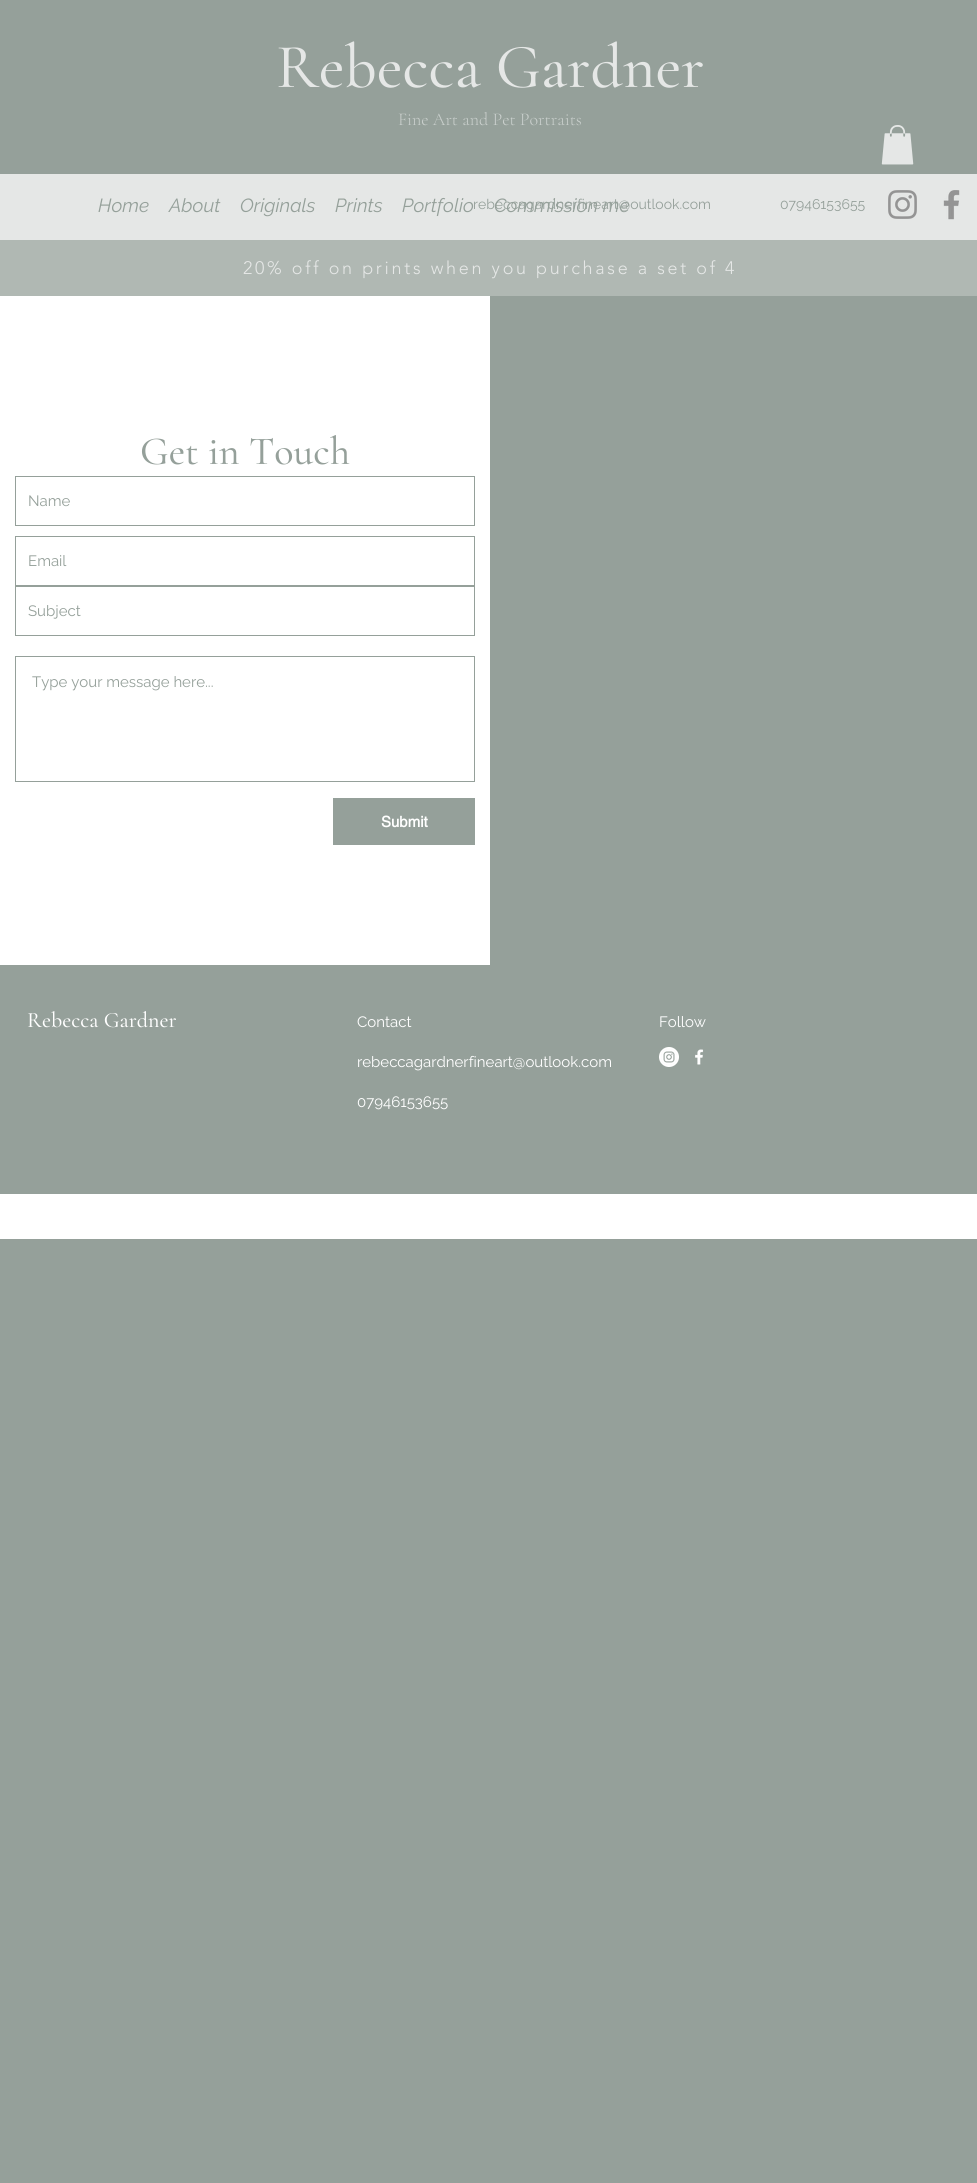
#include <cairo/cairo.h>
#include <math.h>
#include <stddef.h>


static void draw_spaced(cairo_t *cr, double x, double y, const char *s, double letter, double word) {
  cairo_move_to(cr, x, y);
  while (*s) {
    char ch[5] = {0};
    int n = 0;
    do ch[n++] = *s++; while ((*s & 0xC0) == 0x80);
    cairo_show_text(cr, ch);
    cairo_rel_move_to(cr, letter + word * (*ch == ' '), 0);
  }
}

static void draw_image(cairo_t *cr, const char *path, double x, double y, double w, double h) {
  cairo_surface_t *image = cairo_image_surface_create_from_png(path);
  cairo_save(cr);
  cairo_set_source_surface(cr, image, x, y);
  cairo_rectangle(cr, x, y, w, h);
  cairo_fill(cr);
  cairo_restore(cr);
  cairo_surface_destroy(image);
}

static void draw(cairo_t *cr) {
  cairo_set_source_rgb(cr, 149 / 255.0, 160 / 255.0, 154 / 255.0);
  cairo_paint(cr);
  draw_image(cr, "images/1.png", 881, 125, 33, 40);
  cairo_set_source_rgb(cr, 229 / 255.0, 231 / 255.0, 230 / 255.0);
  cairo_rectangle(cr, 0, 174, 977, 66);
  cairo_fill(cr);
  draw_image(cr, "images/2.png", 888, 190, 29, 29);
  draw_image(cr, "images/3.png", 943, 190, 17, 30);
  cairo_set_source_rgb(cr, 176 / 255.0, 184 / 255.0, 179 / 255.0);
  cairo_rectangle(cr, 0, 240, 977, 56);
  cairo_fill(cr);
  cairo_set_source_rgb(cr, 1, 1, 1);
  cairo_rectangle(cr, 0, 296, 490, 669);
  cairo_fill(cr);
  cairo_rectangle(cr, 15.5, 476.5, 459, 49);
  cairo_set_source_rgb(cr, 149 / 255.0, 160 / 255.0, 154 / 255.0);
  cairo_set_line_width(cr, 1);
  cairo_stroke(cr);
  cairo_rectangle(cr, 15.5, 536.5, 459, 49);
  cairo_stroke(cr);
  cairo_rectangle(cr, 15.5, 586.5, 459, 49);
  cairo_stroke(cr);
  cairo_rectangle(cr, 15.5, 656.5, 459, 125);
  cairo_stroke(cr);
  cairo_rectangle(cr, 333, 798, 142, 47);
  cairo_fill(cr);
  draw_image(cr, "images/4.png", 659, 1047, 20, 20);
  draw_image(cr, "images/5.png", 695, 1049, 9, 16);
  cairo_set_source_rgb(cr, 1, 1, 1);
  cairo_rectangle(cr, 0, 1194, 977, 45);
  cairo_fill(cr);
  cairo_select_font_face(cr, "Cormorant Garamond Medium", CAIRO_FONT_SLANT_NORMAL, CAIRO_FONT_WEIGHT_NORMAL);
  cairo_set_font_size(cr, 63);
  cairo_set_source_rgb(cr, 229 / 255.0, 231 / 255.0, 230 / 255.0);
  cairo_move_to(cr, 276, 87);
  cairo_show_text(cr, "Rebecca Gardner");
  cairo_select_font_face(cr, "Cormorant Garamond Light", CAIRO_FONT_SLANT_NORMAL, CAIRO_FONT_WEIGHT_NORMAL);
  cairo_set_font_size(cr, 18);
  cairo_set_source_rgb(cr, 202 / 255.0, 208 / 255.0, 205 / 255.0);
  cairo_move_to(cr, 398, 125);
  cairo_show_text(cr, "Fine Art and Pet Portraits");
  cairo_select_font_face(cr, "Raleway", CAIRO_FONT_SLANT_ITALIC, CAIRO_FONT_WEIGHT_NORMAL);
  cairo_set_font_size(cr, 19);
  cairo_set_source_rgb(cr, 149 / 255.0, 160 / 255.0, 154 / 255.0);
  cairo_move_to(cr, 98, 212);
  cairo_show_text(cr, "Home");
  cairo_move_to(cr, 169, 212);
  cairo_show_text(cr, "About");
  cairo_move_to(cr, 240, 212);
  cairo_show_text(cr, "Originals");
  cairo_move_to(cr, 335, 212);
  cairo_show_text(cr, "Prints");
  cairo_move_to(cr, 402, 212);
  cairo_show_text(cr, "Portfolio");
  cairo_move_to(cr, 494, 212);
  cairo_show_text(cr, "Commission me");
  cairo_select_font_face(cr, "Raleway", CAIRO_FONT_SLANT_NORMAL, CAIRO_FONT_WEIGHT_NORMAL);
  cairo_set_font_size(cr, 14);
  cairo_move_to(cr, 473, 209);
  cairo_show_text(cr, "rebeccagardnerfineart@outlook.com");
  cairo_move_to(cr, 780, 209);
  cairo_show_text(cr, "07946153655");
  cairo_select_font_face(cr, "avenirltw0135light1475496 Light", CAIRO_FONT_SLANT_NORMAL, CAIRO_FONT_WEIGHT_NORMAL);
  cairo_set_font_size(cr, 18);
  cairo_set_source_rgb(cr, 229 / 255.0, 231 / 255.0, 230 / 255.0);
  draw_spaced(cr, 243, 274, "20% off on prints when you purchase a set of 4", 2.7, 0);
  cairo_select_font_face(cr, "Cormorant Garamond Medium", CAIRO_FONT_SLANT_NORMAL, CAIRO_FONT_WEIGHT_NORMAL);
  cairo_set_font_size(cr, 40);
  cairo_set_source_rgb(cr, 149 / 255.0, 160 / 255.0, 154 / 255.0);
  cairo_move_to(cr, 140, 464);
  cairo_show_text(cr, "Get in Touch");
  cairo_select_font_face(cr, "Raleway", CAIRO_FONT_SLANT_NORMAL, CAIRO_FONT_WEIGHT_NORMAL);
  cairo_set_font_size(cr, 15);
  cairo_move_to(cr, 28, 506);
  cairo_show_text(cr, "Name");
  cairo_move_to(cr, 28, 566);
  cairo_show_text(cr, "Email");
  cairo_move_to(cr, 28, 616);
  cairo_show_text(cr, "Subject");
  cairo_move_to(cr, 32, 687);
  cairo_show_text(cr, "Type your message here...");
  cairo_select_font_face(cr, "helvetica", CAIRO_FONT_SLANT_NORMAL, CAIRO_FONT_WEIGHT_BOLD);
  cairo_set_source_rgb(cr, 1, 1, 1);
  cairo_move_to(cr, 381, 827);
  cairo_show_text(cr, "Submit");
  cairo_select_font_face(cr, "Cormorant Garamond Medium", CAIRO_FONT_SLANT_NORMAL, CAIRO_FONT_WEIGHT_NORMAL);
  cairo_set_font_size(cr, 22);
  cairo_move_to(cr, 27, 1027);
  cairo_show_text(cr, "Rebecca Gardner");
  cairo_select_font_face(cr, "Raleway", CAIRO_FONT_SLANT_NORMAL, CAIRO_FONT_WEIGHT_NORMAL);
  cairo_set_font_size(cr, 15);
  cairo_move_to(cr, 357, 1027);
  cairo_show_text(cr, "Contact");
  cairo_move_to(cr, 659, 1027);
  cairo_show_text(cr, "Follow");
  cairo_move_to(cr, 357, 1067);
  cairo_show_text(cr, "rebeccagardnerfineart@outlook.com");
  cairo_move_to(cr, 357, 1107);
  cairo_show_text(cr, "07946153655");
}

int main(void) {
  cairo_surface_t *surface = cairo_image_surface_create(CAIRO_FORMAT_RGB24, 977, 2183);
  cairo_t *cr = cairo_create(surface);
  cairo_font_options_t *options = cairo_font_options_create();
  cairo_font_options_set_hint_metrics(options, CAIRO_HINT_METRICS_OFF);
  cairo_font_options_set_hint_style(options, CAIRO_HINT_STYLE_NONE);
  cairo_set_font_options(cr, options);
  cairo_set_miter_limit(cr, 4);
  draw(cr);
  cairo_surface_write_to_png(surface, "out.png");
  cairo_font_options_destroy(options);
  cairo_destroy(cr);
  cairo_surface_destroy(surface);
  return 0;
}
